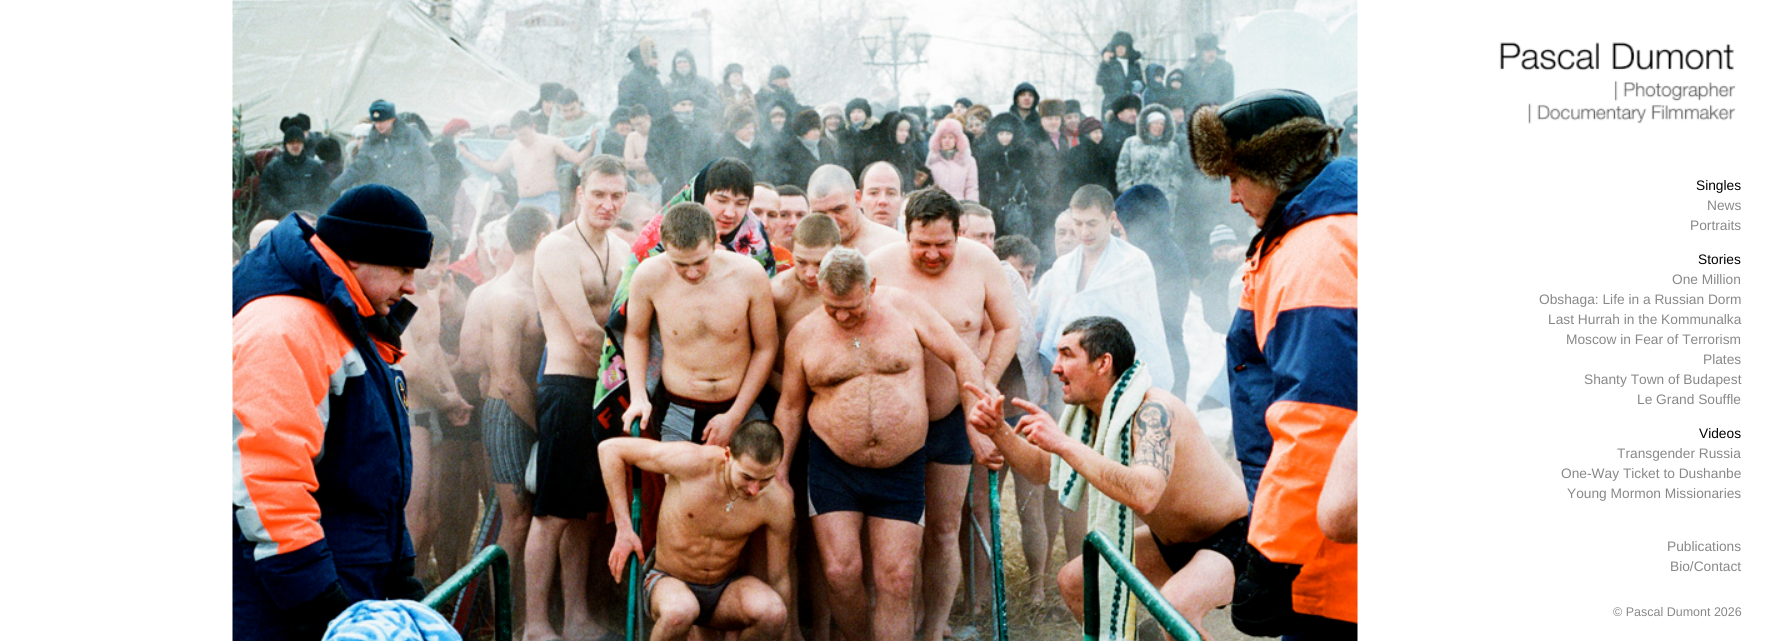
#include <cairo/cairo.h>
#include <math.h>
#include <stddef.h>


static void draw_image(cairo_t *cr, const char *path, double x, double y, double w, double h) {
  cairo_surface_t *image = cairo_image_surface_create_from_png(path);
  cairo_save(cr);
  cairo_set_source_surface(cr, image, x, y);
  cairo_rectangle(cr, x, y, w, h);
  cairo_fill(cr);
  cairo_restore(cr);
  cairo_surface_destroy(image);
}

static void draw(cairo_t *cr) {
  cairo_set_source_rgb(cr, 1, 1, 1);
  cairo_paint(cr);
  draw_image(cr, "images/1.png", 232, 0, 1126, 641);
  draw_image(cr, "images/2.png", 1499, 42, 237, 82);
  cairo_select_font_face(cr, "Liberation Sans", CAIRO_FONT_SLANT_NORMAL, CAIRO_FONT_WEIGHT_NORMAL);
  cairo_set_font_size(cr, 13.75);
  cairo_set_source_rgb(cr, 0, 0, 0);
  cairo_move_to(cr, 1696, 190);
  cairo_show_text(cr, "Singles");
  cairo_set_source_rgb(cr, 136 / 255.0, 136 / 255.0, 136 / 255.0);
  cairo_move_to(cr, 1707, 210);
  cairo_show_text(cr, "News");
  cairo_move_to(cr, 1690, 230);
  cairo_show_text(cr, "Portraits");
  cairo_set_source_rgb(cr, 0, 0, 0);
  cairo_move_to(cr, 1698, 264);
  cairo_show_text(cr, "Stories");
  cairo_set_source_rgb(cr, 136 / 255.0, 136 / 255.0, 136 / 255.0);
  cairo_move_to(cr, 1672, 284);
  cairo_show_text(cr, "One Million");
  cairo_move_to(cr, 1539, 304);
  cairo_show_text(cr, "Obshaga: Life in a Russian Dorm");
  cairo_move_to(cr, 1548, 324);
  cairo_show_text(cr, "Last Hurrah in the Kommunalka");
  cairo_move_to(cr, 1566, 344);
  cairo_show_text(cr, "Moscow in Fear of Terrorism");
  cairo_move_to(cr, 1703, 364);
  cairo_show_text(cr, "Plates");
  cairo_move_to(cr, 1584, 384);
  cairo_show_text(cr, "Shanty Town of Budapest");
  cairo_move_to(cr, 1637, 404);
  cairo_show_text(cr, "Le Grand Souffle");
  cairo_set_source_rgb(cr, 0, 0, 0);
  cairo_move_to(cr, 1699, 438);
  cairo_show_text(cr, "Videos");
  cairo_set_source_rgb(cr, 136 / 255.0, 136 / 255.0, 136 / 255.0);
  cairo_move_to(cr, 1617, 458);
  cairo_show_text(cr, "Transgender Russia");
  cairo_move_to(cr, 1561, 478);
  cairo_show_text(cr, "One-Way Ticket to Dushanbe");
  cairo_move_to(cr, 1567, 498);
  cairo_show_text(cr, "Young Mormon Missionaries");
  cairo_move_to(cr, 1667, 551);
  cairo_show_text(cr, "Publications");
  cairo_move_to(cr, 1670, 571);
  cairo_show_text(cr, "Bio/Contact");
  cairo_set_font_size(cr, 12.5);
  cairo_move_to(cr, 1613, 616);
  cairo_show_text(cr, "© Pascal Dumont 2026");
}

int main(void) {
  cairo_surface_t *surface = cairo_image_surface_create(CAIRO_FORMAT_RGB24, 1766, 641);
  cairo_t *cr = cairo_create(surface);
  cairo_font_options_t *options = cairo_font_options_create();
  cairo_font_options_set_hint_metrics(options, CAIRO_HINT_METRICS_OFF);
  cairo_font_options_set_hint_style(options, CAIRO_HINT_STYLE_NONE);
  cairo_set_font_options(cr, options);
  cairo_set_miter_limit(cr, 4);
  draw(cr);
  cairo_surface_write_to_png(surface, "out.png");
  cairo_font_options_destroy(options);
  cairo_destroy(cr);
  cairo_surface_destroy(surface);
  return 0;
}
